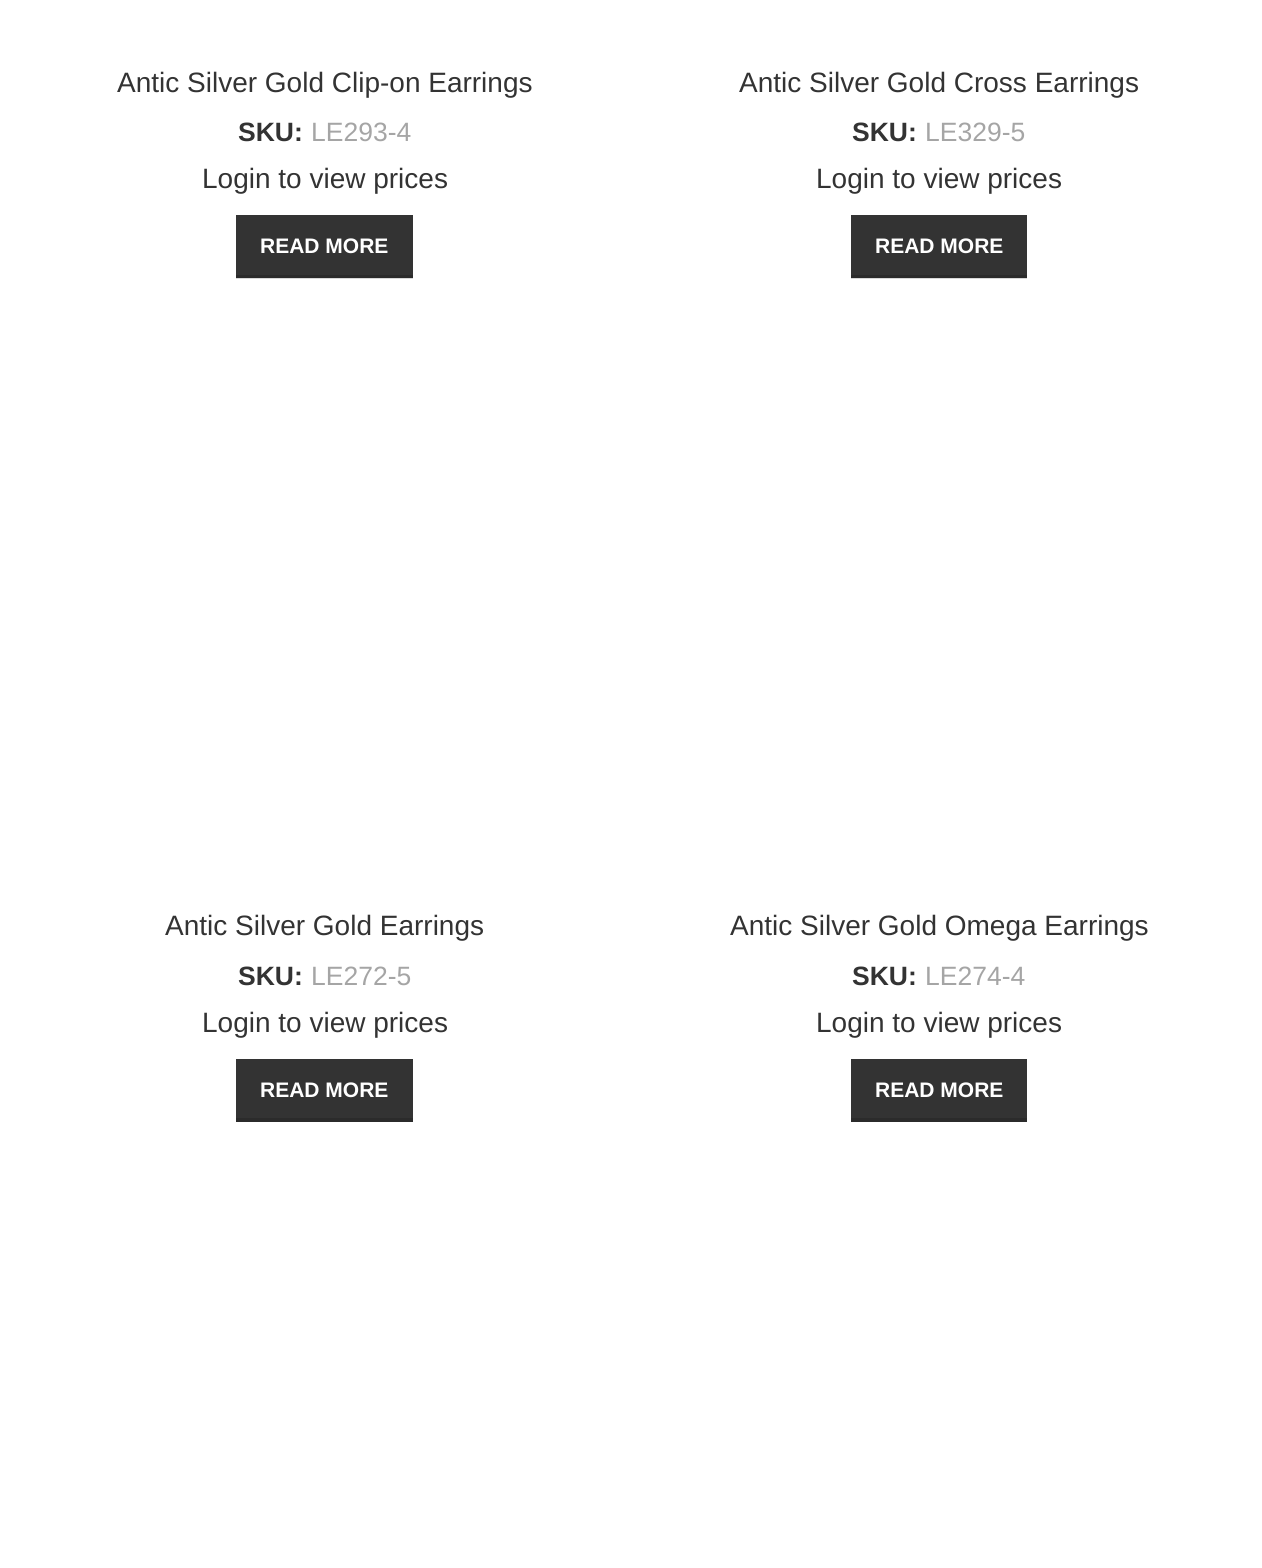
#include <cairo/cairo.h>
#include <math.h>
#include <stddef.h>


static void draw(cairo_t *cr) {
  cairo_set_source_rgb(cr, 1, 1, 1);
  cairo_paint(cr);
  cairo_set_source_rgb(cr, 217 / 255.0, 217 / 255.0, 217 / 255.0);
  cairo_rectangle(cr, 851, 278, 176, 1);
  cairo_fill(cr);
  cairo_rectangle(cr, 236, 278, 177, 1);
  cairo_fill(cr);
  cairo_set_source_rgb(cr, 51 / 255.0, 51 / 255.0, 51 / 255.0);
  cairo_rectangle(cr, 236, 215, 177, 60);
  cairo_fill(cr);
  cairo_set_source_rgb(cr, 43 / 255.0, 43 / 255.0, 43 / 255.0);
  cairo_rectangle(cr, 236, 275, 177, 3);
  cairo_fill(cr);
  cairo_set_source_rgb(cr, 51 / 255.0, 51 / 255.0, 51 / 255.0);
  cairo_rectangle(cr, 851, 215, 176, 60);
  cairo_fill(cr);
  cairo_set_source_rgb(cr, 43 / 255.0, 43 / 255.0, 43 / 255.0);
  cairo_rectangle(cr, 851, 275, 176, 3);
  cairo_fill(cr);
  cairo_set_source_rgb(cr, 51 / 255.0, 51 / 255.0, 51 / 255.0);
  cairo_rectangle(cr, 236, 1059, 177, 59);
  cairo_fill(cr);
  cairo_set_source_rgb(cr, 43 / 255.0, 43 / 255.0, 43 / 255.0);
  cairo_rectangle(cr, 236, 1118, 177, 4);
  cairo_fill(cr);
  cairo_set_source_rgb(cr, 51 / 255.0, 51 / 255.0, 51 / 255.0);
  cairo_rectangle(cr, 851, 1059, 176, 59);
  cairo_fill(cr);
  cairo_set_source_rgb(cr, 43 / 255.0, 43 / 255.0, 43 / 255.0);
  cairo_rectangle(cr, 851, 1118, 176, 4);
  cairo_fill(cr);
  cairo_select_font_face(cr, "Liberation Sans", CAIRO_FONT_SLANT_NORMAL, CAIRO_FONT_WEIGHT_NORMAL);
  cairo_set_font_size(cr, 28);
  cairo_set_source_rgb(cr, 51 / 255.0, 51 / 255.0, 51 / 255.0);
  cairo_move_to(cr, 117, 92);
  cairo_show_text(cr, "Antic Silver Gold Clip-on Earrings");
  cairo_select_font_face(cr, "Liberation Sans", CAIRO_FONT_SLANT_NORMAL, CAIRO_FONT_WEIGHT_BOLD);
  cairo_set_font_size(cr, 26.5);
  cairo_move_to(cr, 238, 141);
  cairo_show_text(cr, "SKU:");
  cairo_select_font_face(cr, "Liberation Sans", CAIRO_FONT_SLANT_NORMAL, CAIRO_FONT_WEIGHT_NORMAL);
  cairo_set_source_rgb(cr, 165 / 255.0, 165 / 255.0, 165 / 255.0);
  cairo_move_to(cr, 311, 141);
  cairo_show_text(cr, "LE293-4");
  cairo_set_font_size(cr, 28);
  cairo_set_source_rgb(cr, 51 / 255.0, 51 / 255.0, 51 / 255.0);
  cairo_move_to(cr, 202, 188);
  cairo_show_text(cr, "Login to view prices");
  cairo_select_font_face(cr, "Liberation Sans", CAIRO_FONT_SLANT_NORMAL, CAIRO_FONT_WEIGHT_BOLD);
  cairo_set_font_size(cr, 21);
  cairo_set_source_rgb(cr, 1, 1, 1);
  cairo_move_to(cr, 260, 253);
  cairo_show_text(cr, "READ MORE");
  cairo_select_font_face(cr, "Liberation Sans", CAIRO_FONT_SLANT_NORMAL, CAIRO_FONT_WEIGHT_NORMAL);
  cairo_set_font_size(cr, 28);
  cairo_set_source_rgb(cr, 51 / 255.0, 51 / 255.0, 51 / 255.0);
  cairo_move_to(cr, 739, 92);
  cairo_show_text(cr, "Antic Silver Gold Cross Earrings");
  cairo_select_font_face(cr, "Liberation Sans", CAIRO_FONT_SLANT_NORMAL, CAIRO_FONT_WEIGHT_BOLD);
  cairo_set_font_size(cr, 26.5);
  cairo_move_to(cr, 852, 141);
  cairo_show_text(cr, "SKU:");
  cairo_select_font_face(cr, "Liberation Sans", CAIRO_FONT_SLANT_NORMAL, CAIRO_FONT_WEIGHT_NORMAL);
  cairo_set_source_rgb(cr, 165 / 255.0, 165 / 255.0, 165 / 255.0);
  cairo_move_to(cr, 925, 141);
  cairo_show_text(cr, "LE329-5");
  cairo_set_font_size(cr, 28);
  cairo_set_source_rgb(cr, 51 / 255.0, 51 / 255.0, 51 / 255.0);
  cairo_move_to(cr, 816, 188);
  cairo_show_text(cr, "Login to view prices");
  cairo_select_font_face(cr, "Liberation Sans", CAIRO_FONT_SLANT_NORMAL, CAIRO_FONT_WEIGHT_BOLD);
  cairo_set_font_size(cr, 21);
  cairo_set_source_rgb(cr, 1, 1, 1);
  cairo_move_to(cr, 875, 253);
  cairo_show_text(cr, "READ MORE");
  cairo_select_font_face(cr, "Liberation Sans", CAIRO_FONT_SLANT_NORMAL, CAIRO_FONT_WEIGHT_NORMAL);
  cairo_set_font_size(cr, 28);
  cairo_set_source_rgb(cr, 51 / 255.0, 51 / 255.0, 51 / 255.0);
  cairo_move_to(cr, 165, 935);
  cairo_show_text(cr, "Antic Silver Gold Earrings");
  cairo_select_font_face(cr, "Liberation Sans", CAIRO_FONT_SLANT_NORMAL, CAIRO_FONT_WEIGHT_BOLD);
  cairo_set_font_size(cr, 26.5);
  cairo_move_to(cr, 238, 985);
  cairo_show_text(cr, "SKU:");
  cairo_select_font_face(cr, "Liberation Sans", CAIRO_FONT_SLANT_NORMAL, CAIRO_FONT_WEIGHT_NORMAL);
  cairo_set_source_rgb(cr, 165 / 255.0, 165 / 255.0, 165 / 255.0);
  cairo_move_to(cr, 311, 985);
  cairo_show_text(cr, "LE272-5");
  cairo_set_font_size(cr, 28);
  cairo_set_source_rgb(cr, 51 / 255.0, 51 / 255.0, 51 / 255.0);
  cairo_move_to(cr, 202, 1032);
  cairo_show_text(cr, "Login to view prices");
  cairo_select_font_face(cr, "Liberation Sans", CAIRO_FONT_SLANT_NORMAL, CAIRO_FONT_WEIGHT_BOLD);
  cairo_set_font_size(cr, 21);
  cairo_set_source_rgb(cr, 1, 1, 1);
  cairo_move_to(cr, 260, 1097);
  cairo_show_text(cr, "READ MORE");
  cairo_select_font_face(cr, "Liberation Sans", CAIRO_FONT_SLANT_NORMAL, CAIRO_FONT_WEIGHT_NORMAL);
  cairo_set_font_size(cr, 28);
  cairo_set_source_rgb(cr, 51 / 255.0, 51 / 255.0, 51 / 255.0);
  cairo_move_to(cr, 730, 935);
  cairo_show_text(cr, "Antic Silver Gold Omega Earrings");
  cairo_select_font_face(cr, "Liberation Sans", CAIRO_FONT_SLANT_NORMAL, CAIRO_FONT_WEIGHT_BOLD);
  cairo_set_font_size(cr, 26.5);
  cairo_move_to(cr, 852, 985);
  cairo_show_text(cr, "SKU:");
  cairo_select_font_face(cr, "Liberation Sans", CAIRO_FONT_SLANT_NORMAL, CAIRO_FONT_WEIGHT_NORMAL);
  cairo_set_source_rgb(cr, 165 / 255.0, 165 / 255.0, 165 / 255.0);
  cairo_move_to(cr, 925, 985);
  cairo_show_text(cr, "LE274-4");
  cairo_set_font_size(cr, 28);
  cairo_set_source_rgb(cr, 51 / 255.0, 51 / 255.0, 51 / 255.0);
  cairo_move_to(cr, 816, 1032);
  cairo_show_text(cr, "Login to view prices");
  cairo_select_font_face(cr, "Liberation Sans", CAIRO_FONT_SLANT_NORMAL, CAIRO_FONT_WEIGHT_BOLD);
  cairo_set_font_size(cr, 21);
  cairo_set_source_rgb(cr, 1, 1, 1);
  cairo_move_to(cr, 875, 1097);
  cairo_show_text(cr, "READ MORE");
}

int main(void) {
  cairo_surface_t *surface = cairo_image_surface_create(CAIRO_FORMAT_RGB24, 1262, 1568);
  cairo_t *cr = cairo_create(surface);
  cairo_font_options_t *options = cairo_font_options_create();
  cairo_font_options_set_hint_metrics(options, CAIRO_HINT_METRICS_OFF);
  cairo_font_options_set_hint_style(options, CAIRO_HINT_STYLE_NONE);
  cairo_set_font_options(cr, options);
  cairo_set_miter_limit(cr, 4);
  draw(cr);
  cairo_surface_write_to_png(surface, "out.png");
  cairo_font_options_destroy(options);
  cairo_destroy(cr);
  cairo_surface_destroy(surface);
  return 0;
}
